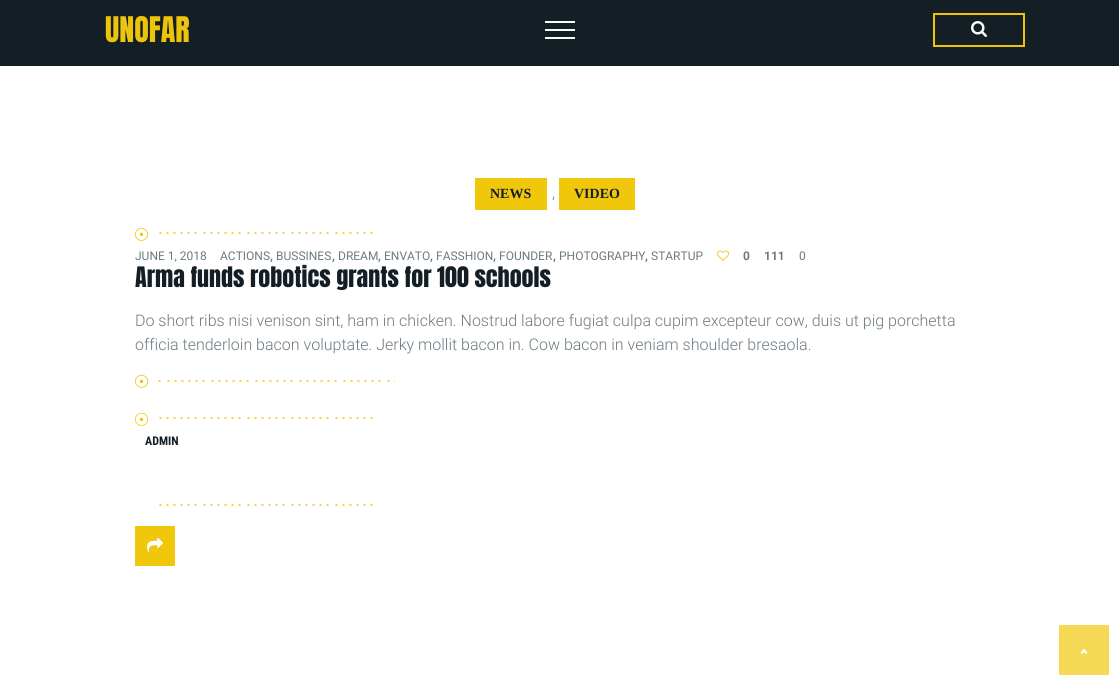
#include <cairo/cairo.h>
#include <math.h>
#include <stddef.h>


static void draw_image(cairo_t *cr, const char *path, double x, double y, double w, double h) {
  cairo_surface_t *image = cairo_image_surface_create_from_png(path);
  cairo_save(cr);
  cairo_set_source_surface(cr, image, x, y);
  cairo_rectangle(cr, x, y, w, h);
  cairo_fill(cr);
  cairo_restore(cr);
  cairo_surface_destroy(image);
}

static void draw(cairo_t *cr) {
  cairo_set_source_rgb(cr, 1, 1, 1);
  cairo_paint(cr);
  cairo_set_source_rgb(cr, 19 / 255.0, 30 / 255.0, 37 / 255.0);
  cairo_rectangle(cr, 0, 0, 1119, 66);
  cairo_fill(cr);
  cairo_set_source_rgb(cr, 250 / 255.0, 251 / 255.0, 251 / 255.0);
  cairo_rectangle(cr, 545, 29, 30, 2);
  cairo_fill(cr);
  cairo_rectangle(cr, 545, 21, 30, 2);
  cairo_fill(cr);
  cairo_rectangle(cr, 545, 37, 30, 2);
  cairo_fill(cr);
  cairo_rectangle(cr, 934, 14, 90, 32);
  cairo_set_source_rgb(cr, 236 / 255.0, 196 / 255.0, 11 / 255.0);
  cairo_stroke(cr);
  draw_image(cr, "images/1.png", 971, 21, 16, 16);
  cairo_set_source_rgb(cr, 240 / 255.0, 199 / 255.0, 10 / 255.0);
  cairo_rectangle(cr, 475, 178, 72, 32);
  cairo_fill(cr);
  cairo_rectangle(cr, 559, 178, 76, 32);
  cairo_fill(cr);
  draw_image(cr, "images/2.png", 135, 227, 13, 14);
  draw_image(cr, "images/3.png", 159, 232, 214, 2);
  draw_image(cr, "images/4.png", 717, 250, 12, 11);
  draw_image(cr, "images/2.png", 135, 374, 13, 14);
  draw_image(cr, "images/5.png", 158, 380, 237, 2);
  draw_image(cr, "images/2.png", 135, 412, 13, 14);
  draw_image(cr, "images/3.png", 159, 417, 214, 2);
  draw_image(cr, "images/3.png", 159, 504, 214, 2);
  cairo_rectangle(cr, 135, 526, 40, 40);
  cairo_fill(cr);
  draw_image(cr, "images/6.png", 147, 537, 16, 16);
  cairo_set_source_rgb(cr, 245 / 255.0, 216 / 255.0, 84 / 255.0);
  cairo_rectangle(cr, 1059, 625, 50, 50);
  cairo_fill(cr);
  cairo_set_source_rgb(cr, 1, 1, 1);
  cairo_new_path(cr);
  cairo_move_to(cr, 1080.5, 652.5);
  cairo_line_to(cr, 1084, 649);
  cairo_line_to(cr, 1085.5, 650.5);
  cairo_line_to(cr, 1082, 654);
  cairo_close_path(cr);
  cairo_fill(cr);
  cairo_new_path(cr);
  cairo_move_to(cr, 1082.5, 650.5);
  cairo_line_to(cr, 1084, 649);
  cairo_line_to(cr, 1087.5, 652.5);
  cairo_line_to(cr, 1086, 654);
  cairo_close_path(cr);
  cairo_fill(cr);
  cairo_select_font_face(cr, "Anton", CAIRO_FONT_SLANT_NORMAL, CAIRO_FONT_WEIGHT_NORMAL);
  cairo_set_font_size(cr, 30);
  cairo_set_source_rgb(cr, 236 / 255.0, 196 / 255.0, 11 / 255.0);
  cairo_move_to(cr, 105, 42);
  cairo_show_text(cr, "UNOFAR");
  cairo_select_font_face(cr, "Liberation Serif", CAIRO_FONT_SLANT_NORMAL, CAIRO_FONT_WEIGHT_BOLD);
  cairo_set_font_size(cr, 14);
  cairo_set_source_rgb(cr, 19 / 255.0, 30 / 255.0, 37 / 255.0);
  cairo_move_to(cr, 490, 198);
  cairo_show_text(cr, "NEWS");
  cairo_select_font_face(cr, "Roboto Light", CAIRO_FONT_SLANT_NORMAL, CAIRO_FONT_WEIGHT_NORMAL);
  cairo_set_font_size(cr, 16);
  cairo_set_source_rgb(cr, 109 / 255.0, 122 / 255.0, 130 / 255.0);
  cairo_move_to(cr, 552, 198);
  cairo_show_text(cr, ",");
  cairo_select_font_face(cr, "Liberation Serif", CAIRO_FONT_SLANT_NORMAL, CAIRO_FONT_WEIGHT_BOLD);
  cairo_set_font_size(cr, 14);
  cairo_set_source_rgb(cr, 19 / 255.0, 30 / 255.0, 37 / 255.0);
  cairo_move_to(cr, 574, 198);
  cairo_show_text(cr, "VIDEO");
  cairo_select_font_face(cr, "Roboto", CAIRO_FONT_SLANT_NORMAL, CAIRO_FONT_WEIGHT_NORMAL);
  cairo_set_font_size(cr, 12);
  cairo_set_source_rgb(cr, 109 / 255.0, 122 / 255.0, 130 / 255.0);
  cairo_move_to(cr, 135, 260);
  cairo_show_text(cr, "JUNE 1, 2018");
  cairo_move_to(cr, 220, 260);
  cairo_show_text(cr, "ACTIONS");
  cairo_select_font_face(cr, "Roboto", CAIRO_FONT_SLANT_NORMAL, CAIRO_FONT_WEIGHT_BOLD);
  cairo_move_to(cr, 270, 260);
  cairo_show_text(cr, ",");
  cairo_select_font_face(cr, "Roboto", CAIRO_FONT_SLANT_NORMAL, CAIRO_FONT_WEIGHT_NORMAL);
  cairo_move_to(cr, 276, 260);
  cairo_show_text(cr, "BUSSINES");
  cairo_select_font_face(cr, "Roboto", CAIRO_FONT_SLANT_NORMAL, CAIRO_FONT_WEIGHT_BOLD);
  cairo_move_to(cr, 332, 260);
  cairo_show_text(cr, ",");
  cairo_select_font_face(cr, "Roboto", CAIRO_FONT_SLANT_NORMAL, CAIRO_FONT_WEIGHT_NORMAL);
  cairo_move_to(cr, 338, 260);
  cairo_show_text(cr, "DREAM");
  cairo_select_font_face(cr, "Roboto", CAIRO_FONT_SLANT_NORMAL, CAIRO_FONT_WEIGHT_BOLD);
  cairo_move_to(cr, 378, 260);
  cairo_show_text(cr, ",");
  cairo_select_font_face(cr, "Roboto", CAIRO_FONT_SLANT_NORMAL, CAIRO_FONT_WEIGHT_NORMAL);
  cairo_move_to(cr, 384, 260);
  cairo_show_text(cr, "ENVATO");
  cairo_select_font_face(cr, "Roboto", CAIRO_FONT_SLANT_NORMAL, CAIRO_FONT_WEIGHT_BOLD);
  cairo_move_to(cr, 430, 260);
  cairo_show_text(cr, ",");
  cairo_select_font_face(cr, "Roboto", CAIRO_FONT_SLANT_NORMAL, CAIRO_FONT_WEIGHT_NORMAL);
  cairo_move_to(cr, 436, 260);
  cairo_show_text(cr, "FASSHION");
  cairo_select_font_face(cr, "Roboto", CAIRO_FONT_SLANT_NORMAL, CAIRO_FONT_WEIGHT_BOLD);
  cairo_move_to(cr, 493, 260);
  cairo_show_text(cr, ",");
  cairo_select_font_face(cr, "Roboto", CAIRO_FONT_SLANT_NORMAL, CAIRO_FONT_WEIGHT_NORMAL);
  cairo_move_to(cr, 499, 260);
  cairo_show_text(cr, "FOUNDER");
  cairo_select_font_face(cr, "Roboto", CAIRO_FONT_SLANT_NORMAL, CAIRO_FONT_WEIGHT_BOLD);
  cairo_move_to(cr, 553, 260);
  cairo_show_text(cr, ",");
  cairo_select_font_face(cr, "Roboto", CAIRO_FONT_SLANT_NORMAL, CAIRO_FONT_WEIGHT_NORMAL);
  cairo_move_to(cr, 559, 260);
  cairo_show_text(cr, "PHOTOGRAPHY");
  cairo_select_font_face(cr, "Roboto", CAIRO_FONT_SLANT_NORMAL, CAIRO_FONT_WEIGHT_BOLD);
  cairo_move_to(cr, 645, 260);
  cairo_show_text(cr, ",");
  cairo_select_font_face(cr, "Roboto", CAIRO_FONT_SLANT_NORMAL, CAIRO_FONT_WEIGHT_NORMAL);
  cairo_move_to(cr, 651, 260);
  cairo_show_text(cr, "STARTUP");
  cairo_select_font_face(cr, "Roboto", CAIRO_FONT_SLANT_NORMAL, CAIRO_FONT_WEIGHT_BOLD);
  cairo_move_to(cr, 743, 260);
  cairo_show_text(cr, "0");
  cairo_move_to(cr, 764, 260);
  cairo_show_text(cr, "111");
  cairo_select_font_face(cr, "Roboto", CAIRO_FONT_SLANT_NORMAL, CAIRO_FONT_WEIGHT_NORMAL);
  cairo_move_to(cr, 799, 260);
  cairo_show_text(cr, "0");
  cairo_select_font_face(cr, "Anton", CAIRO_FONT_SLANT_NORMAL, CAIRO_FONT_WEIGHT_NORMAL);
  cairo_set_font_size(cr, 24);
  cairo_set_source_rgb(cr, 19 / 255.0, 30 / 255.0, 37 / 255.0);
  cairo_move_to(cr, 135, 287);
  cairo_show_text(cr, "Arma funds robotics grants for 100 schools");
  cairo_select_font_face(cr, "Roboto Light", CAIRO_FONT_SLANT_NORMAL, CAIRO_FONT_WEIGHT_NORMAL);
  cairo_set_font_size(cr, 16);
  cairo_set_source_rgb(cr, 109 / 255.0, 122 / 255.0, 130 / 255.0);
  cairo_move_to(cr, 135, 326);
  cairo_show_text(cr, "Do short ribs nisi venison sint, ham in chicken. Nostrud labore fugiat culpa cupim excepteur cow, duis ut pig porchetta");
  cairo_move_to(cr, 135, 350);
  cairo_show_text(cr, "officia tenderloin bacon voluptate. Jerky mollit bacon in. Cow bacon in veniam shoulder bresaola.");
  cairo_select_font_face(cr, "Roboto Condensed", CAIRO_FONT_SLANT_NORMAL, CAIRO_FONT_WEIGHT_BOLD);
  cairo_set_font_size(cr, 12);
  cairo_set_source_rgb(cr, 19 / 255.0, 30 / 255.0, 37 / 255.0);
  cairo_move_to(cr, 145, 445);
  cairo_show_text(cr, "ADMIN");
}

int main(void) {
  cairo_surface_t *surface = cairo_image_surface_create(CAIRO_FORMAT_RGB24, 1119, 685);
  cairo_t *cr = cairo_create(surface);
  cairo_font_options_t *options = cairo_font_options_create();
  cairo_font_options_set_hint_metrics(options, CAIRO_HINT_METRICS_OFF);
  cairo_font_options_set_hint_style(options, CAIRO_HINT_STYLE_NONE);
  cairo_set_font_options(cr, options);
  cairo_set_miter_limit(cr, 4);
  draw(cr);
  cairo_surface_write_to_png(surface, "out.png");
  cairo_font_options_destroy(options);
  cairo_destroy(cr);
  cairo_surface_destroy(surface);
  return 0;
}
